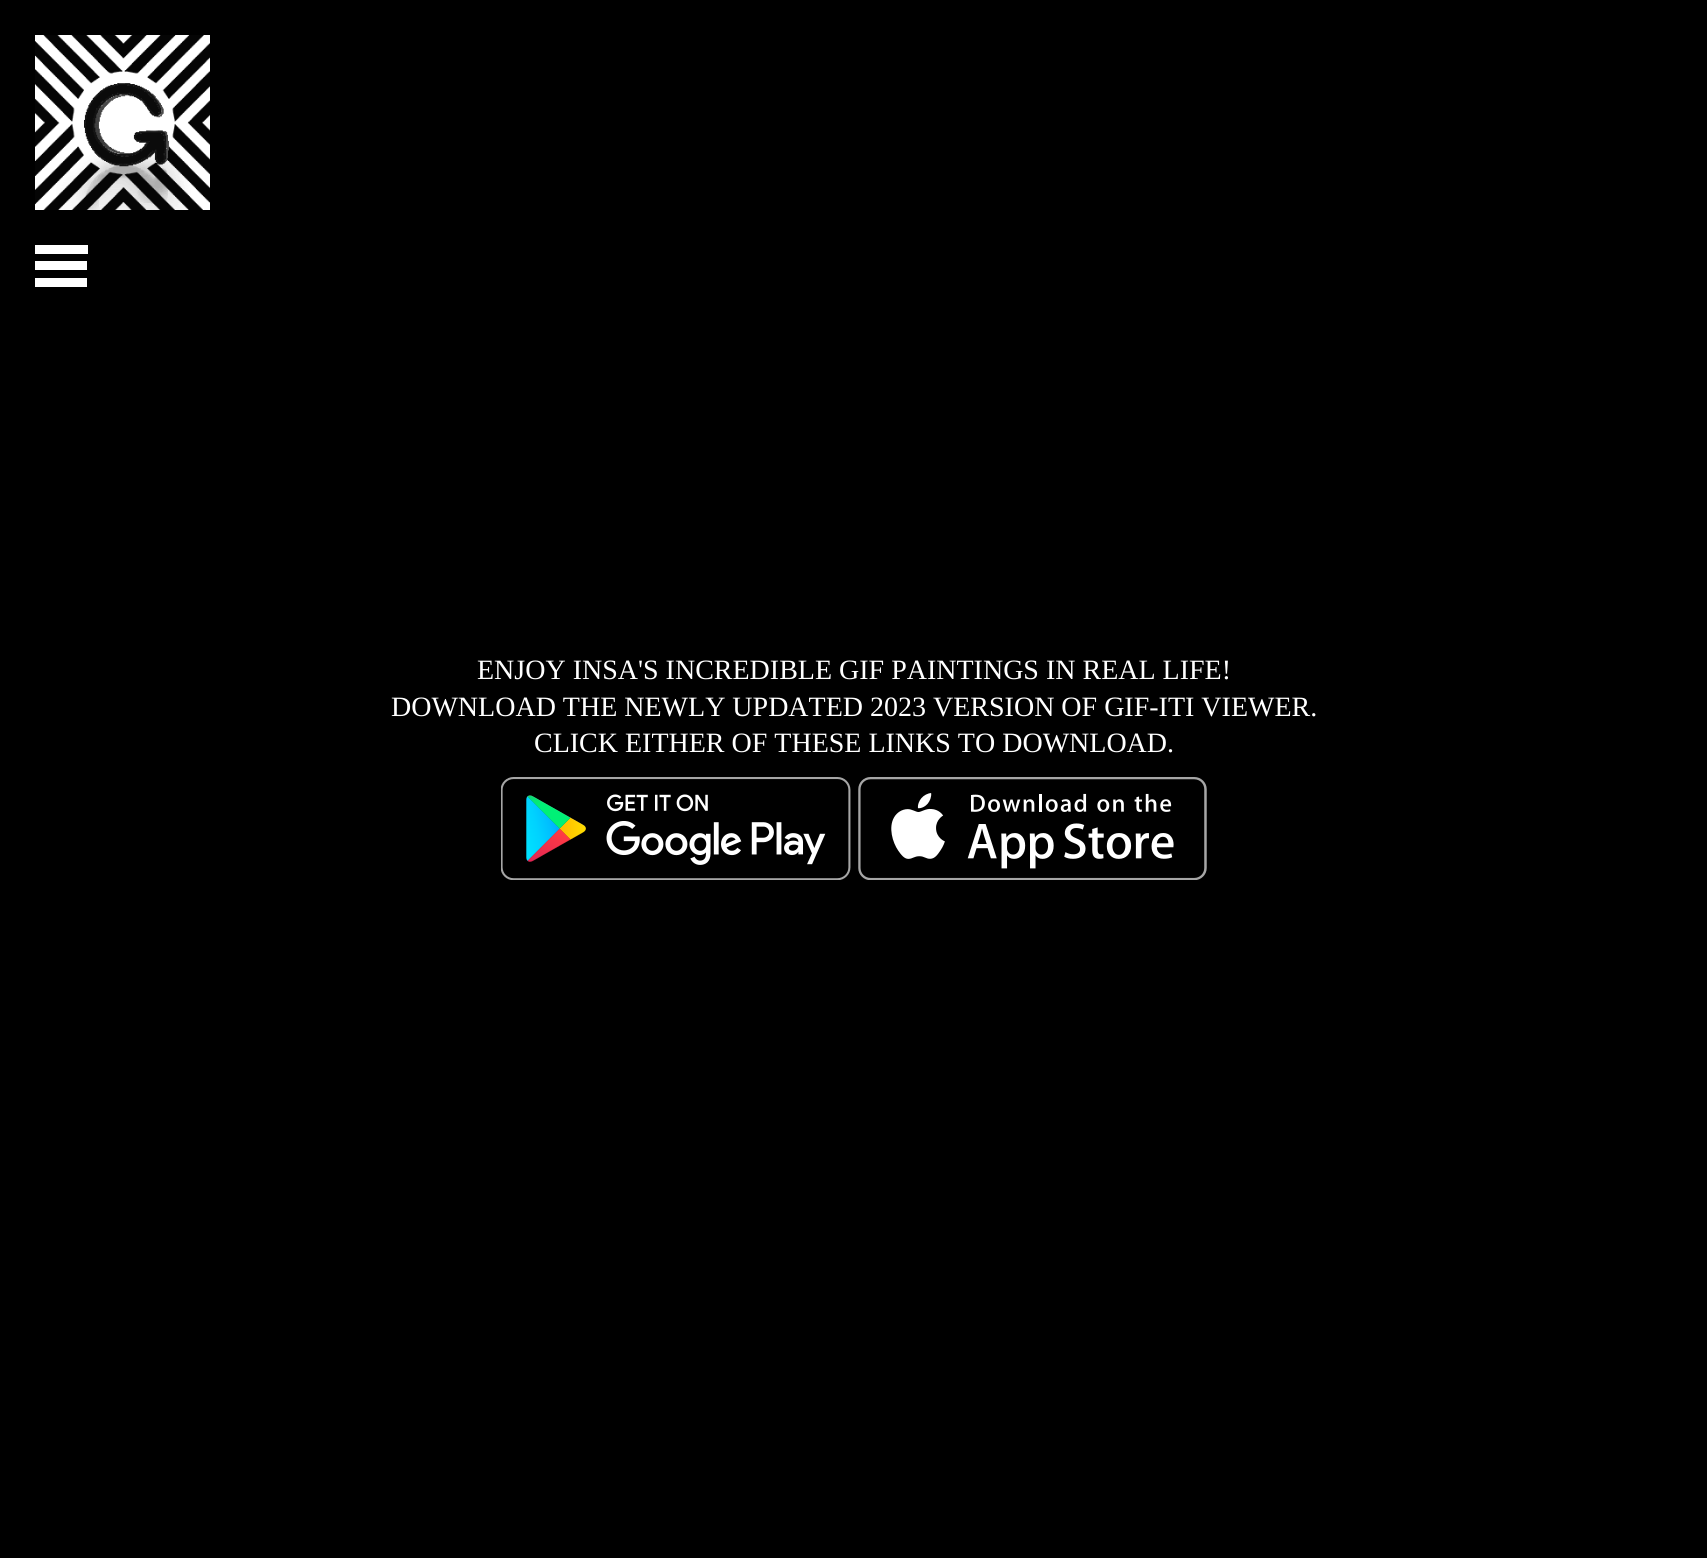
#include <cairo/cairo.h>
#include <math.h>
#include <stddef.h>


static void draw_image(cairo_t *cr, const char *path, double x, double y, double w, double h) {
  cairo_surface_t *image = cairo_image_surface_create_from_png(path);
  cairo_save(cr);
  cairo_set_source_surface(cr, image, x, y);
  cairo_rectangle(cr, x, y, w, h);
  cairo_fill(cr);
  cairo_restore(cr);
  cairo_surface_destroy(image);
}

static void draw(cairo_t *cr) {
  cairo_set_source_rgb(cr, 0, 0, 0);
  cairo_paint(cr);
  cairo_set_source_rgb(cr, 1, 1, 1);
  cairo_rectangle(cr, 35, 35, 175, 175);
  cairo_fill(cr);
  draw_image(cr, "images/1.png", 35, 35, 175, 175);
  cairo_new_path(cr);
  cairo_move_to(cr, 88, 245);
  cairo_line_to(cr, 88, 254);
  cairo_line_to(cr, 35, 254);
  cairo_line_to(cr, 35, 245);
  cairo_close_path(cr);
  cairo_move_to(cr, 35, 261);
  cairo_line_to(cr, 87, 261);
  cairo_line_to(cr, 87, 270);
  cairo_line_to(cr, 35, 270);
  cairo_close_path(cr);
  cairo_move_to(cr, 35, 287);
  cairo_line_to(cr, 35, 278);
  cairo_line_to(cr, 87, 278);
  cairo_line_to(cr, 87, 287);
  cairo_close_path(cr);
  cairo_fill(cr);
  draw_image(cr, "images/2.png", 501, 777, 350, 103);
  draw_image(cr, "images/3.png", 858, 777, 349, 103);
  cairo_select_font_face(cr, "Liberation Serif", CAIRO_FONT_SLANT_NORMAL, CAIRO_FONT_WEIGHT_NORMAL);
  cairo_set_font_size(cr, 28);
  cairo_move_to(cr, 477, 679);
  cairo_show_text(cr, "ENJOY INSA'S INCREDIBLE GIF PAINTINGS IN REAL LIFE!");
  cairo_move_to(cr, 391, 716);
  cairo_show_text(cr, "DOWNLOAD THE NEWLY UPDATED 2023 VERSION OF GIF-ITI VIEWER.");
  cairo_move_to(cr, 534, 752);
  cairo_show_text(cr, "CLICK EITHER OF THESE LINKS TO DOWNLOAD.");
}

int main(void) {
  cairo_surface_t *surface = cairo_image_surface_create(CAIRO_FORMAT_RGB24, 1707, 1558);
  cairo_t *cr = cairo_create(surface);
  cairo_font_options_t *options = cairo_font_options_create();
  cairo_font_options_set_hint_metrics(options, CAIRO_HINT_METRICS_OFF);
  cairo_font_options_set_hint_style(options, CAIRO_HINT_STYLE_NONE);
  cairo_set_font_options(cr, options);
  cairo_set_miter_limit(cr, 4);
  draw(cr);
  cairo_surface_write_to_png(surface, "out.png");
  cairo_font_options_destroy(options);
  cairo_destroy(cr);
  cairo_surface_destroy(surface);
  return 0;
}
